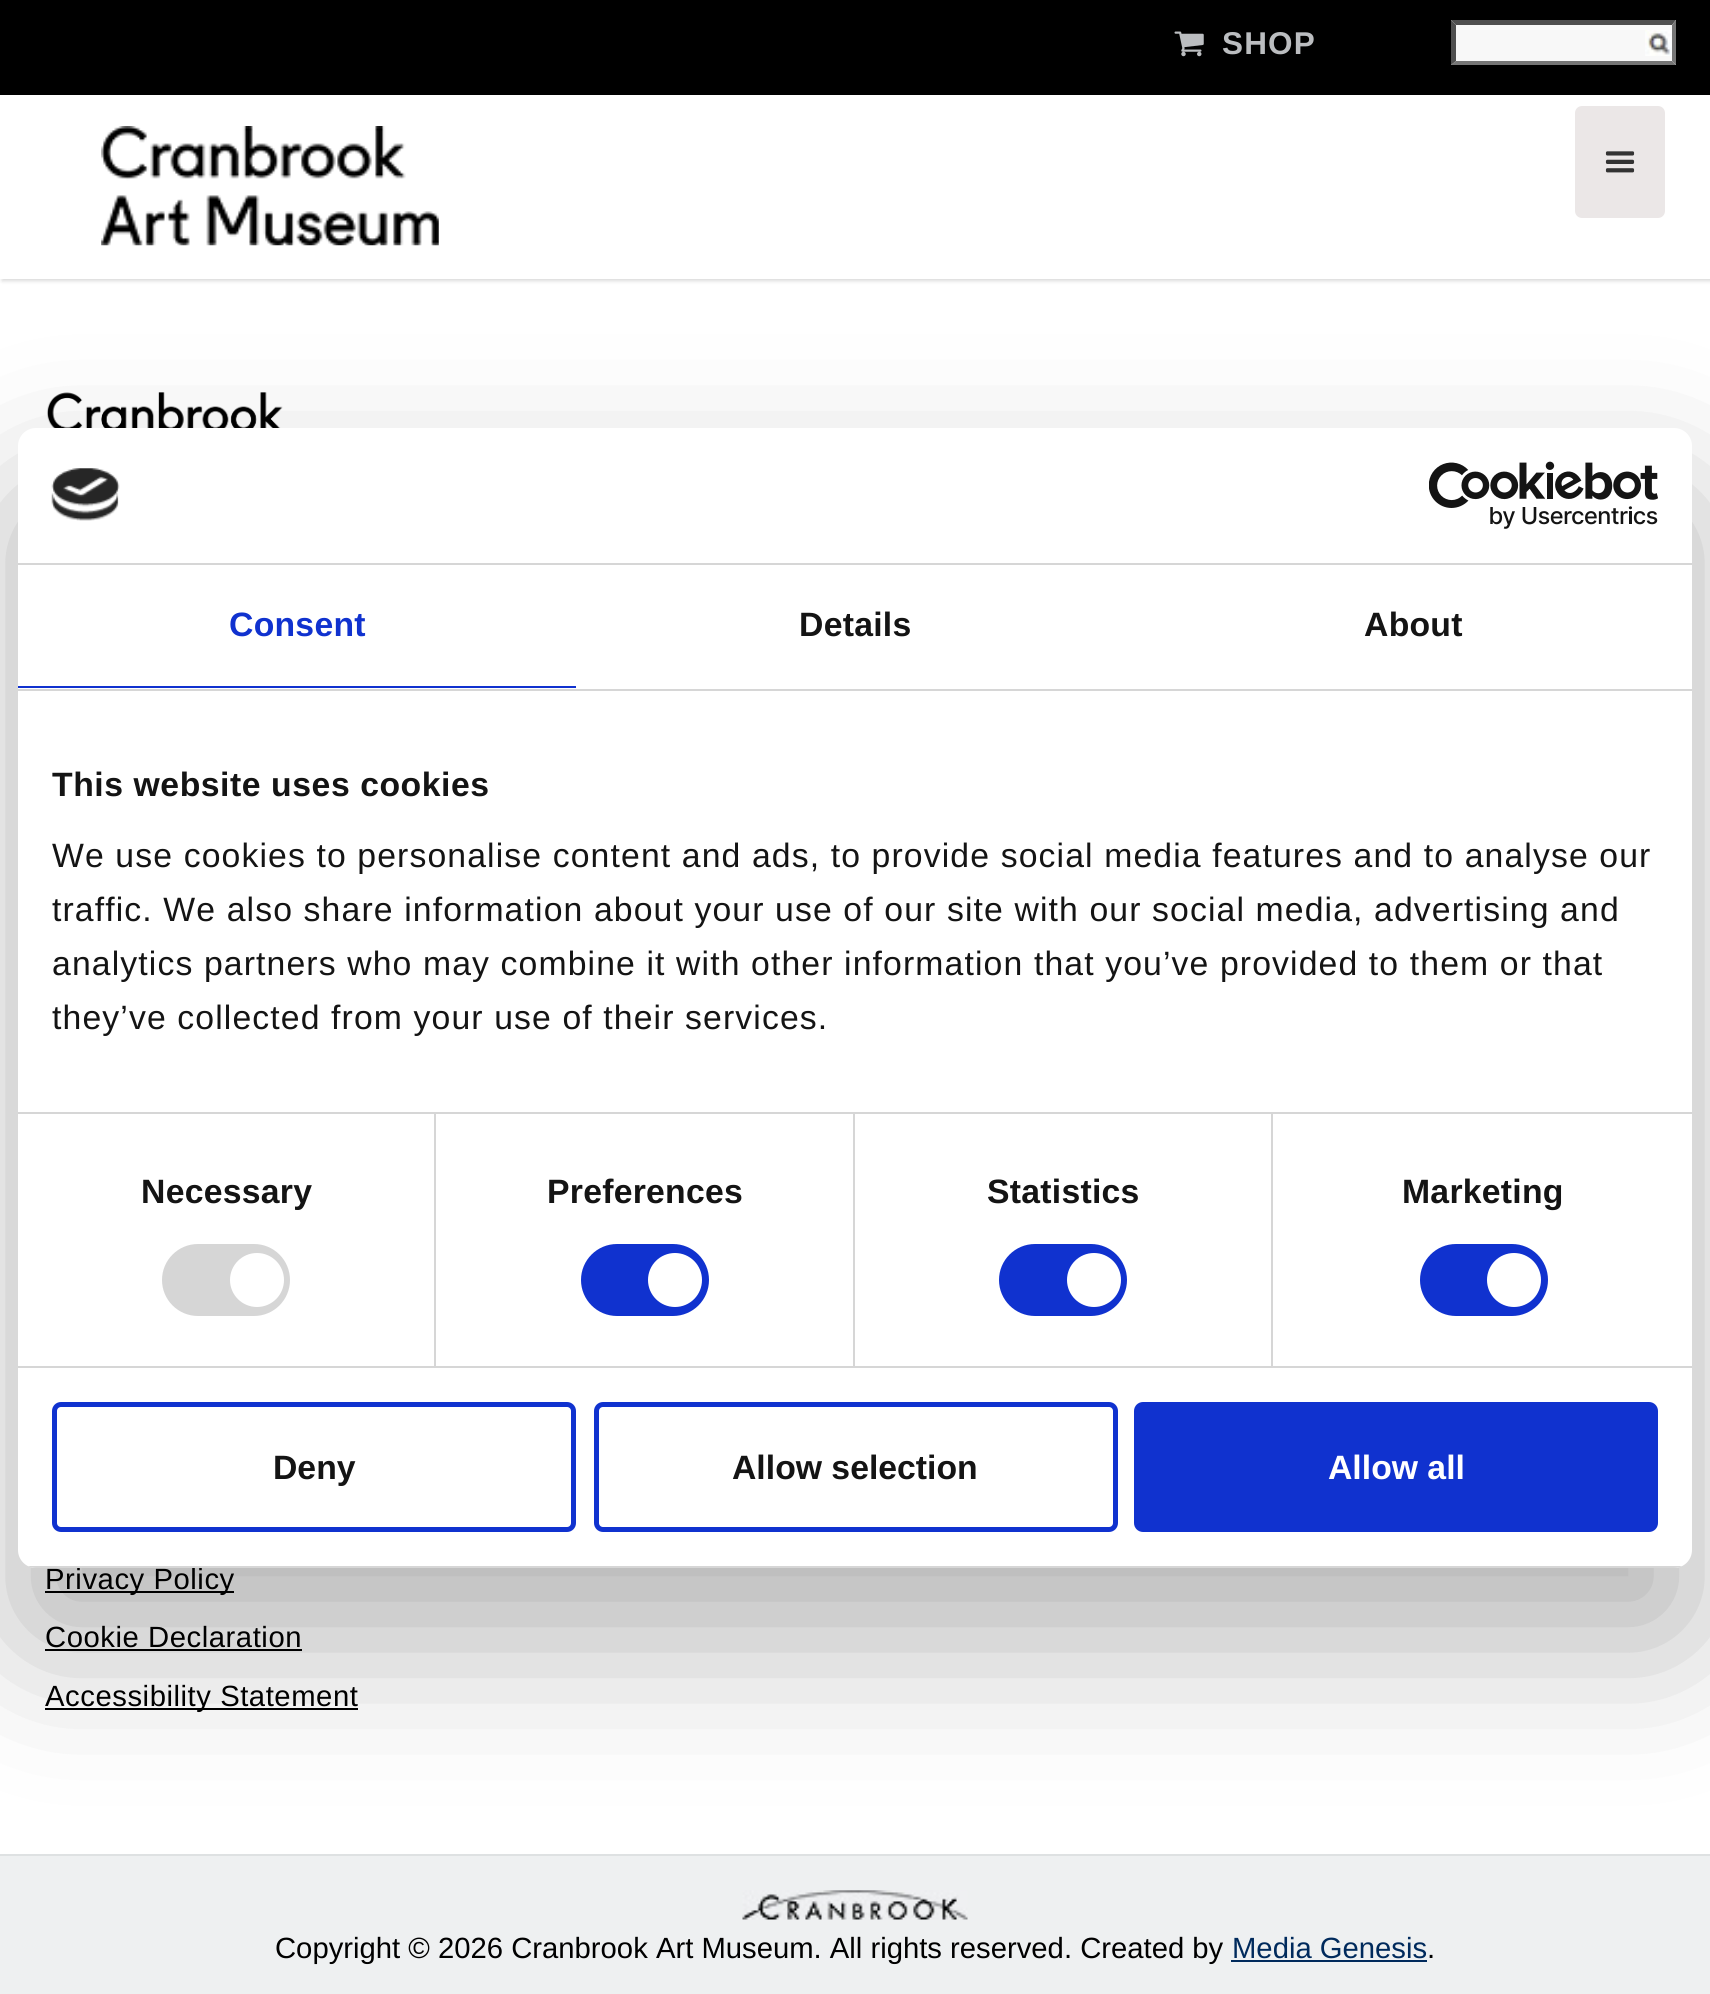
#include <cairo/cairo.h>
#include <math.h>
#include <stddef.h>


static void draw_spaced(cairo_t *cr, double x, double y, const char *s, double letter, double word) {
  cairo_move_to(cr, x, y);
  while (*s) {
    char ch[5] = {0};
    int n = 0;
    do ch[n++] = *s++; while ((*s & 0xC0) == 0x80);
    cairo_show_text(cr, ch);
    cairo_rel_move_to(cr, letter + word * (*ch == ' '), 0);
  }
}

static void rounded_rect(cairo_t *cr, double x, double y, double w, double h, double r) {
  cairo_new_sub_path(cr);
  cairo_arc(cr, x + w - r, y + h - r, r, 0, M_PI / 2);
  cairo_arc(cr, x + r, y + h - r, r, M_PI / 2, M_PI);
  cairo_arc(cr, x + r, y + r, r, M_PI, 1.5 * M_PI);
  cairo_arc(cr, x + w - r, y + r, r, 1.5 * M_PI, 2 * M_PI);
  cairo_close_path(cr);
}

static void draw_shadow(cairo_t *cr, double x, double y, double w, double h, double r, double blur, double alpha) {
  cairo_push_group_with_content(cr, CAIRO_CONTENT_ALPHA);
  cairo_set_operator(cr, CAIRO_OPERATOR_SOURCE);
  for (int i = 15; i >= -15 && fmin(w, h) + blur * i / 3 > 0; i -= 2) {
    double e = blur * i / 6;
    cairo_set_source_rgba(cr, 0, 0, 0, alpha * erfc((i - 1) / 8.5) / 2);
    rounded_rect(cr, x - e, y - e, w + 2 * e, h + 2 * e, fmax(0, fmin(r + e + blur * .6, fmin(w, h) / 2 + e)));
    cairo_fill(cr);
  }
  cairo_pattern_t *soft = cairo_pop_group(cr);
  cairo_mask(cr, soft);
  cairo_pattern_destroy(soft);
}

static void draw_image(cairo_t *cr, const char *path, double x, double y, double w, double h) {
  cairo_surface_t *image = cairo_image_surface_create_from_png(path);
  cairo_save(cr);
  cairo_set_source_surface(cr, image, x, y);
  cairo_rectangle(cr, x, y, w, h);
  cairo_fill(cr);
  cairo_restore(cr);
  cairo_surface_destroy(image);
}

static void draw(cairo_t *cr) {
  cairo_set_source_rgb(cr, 1, 1, 1);
  cairo_paint(cr);
  cairo_set_source_rgb(cr, 0, 0, 0);
  draw_shadow(cr, 2, 2, 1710, 279, 0, 2, 0.15);
  cairo_set_source_rgb(cr, 1, 1, 1);
  cairo_rectangle(cr, 0, 95, 1710, 184);
  cairo_fill(cr);
  cairo_set_source_rgb(cr, 0, 0, 0);
  cairo_rectangle(cr, 0, 0, 1710, 95);
  cairo_fill(cr);
  draw_image(cr, "images/1.png", 1174, 31, 30, 26);
  cairo_set_source_rgb(cr, 248 / 255.0, 248 / 255.0, 248 / 255.0);
  cairo_rectangle(cr, 1451, 20, 225, 45);
  cairo_fill(cr);
  draw_image(cr, "images/2.png", 1645, 30, 27, 26);
  cairo_set_source_rgb(cr, 79 / 255.0, 79 / 255.0, 79 / 255.0);
  cairo_new_path(cr);
  cairo_move_to(cr, 1451, 20);
  cairo_line_to(cr, 1676, 20);
  cairo_line_to(cr, 1672, 25);
  cairo_line_to(cr, 1456, 25);
  cairo_close_path(cr);
  cairo_fill(cr);
  cairo_set_source_rgb(cr, 118 / 255.0, 118 / 255.0, 118 / 255.0);
  cairo_new_path(cr);
  cairo_move_to(cr, 1676, 20);
  cairo_line_to(cr, 1676, 65);
  cairo_line_to(cr, 1672, 61);
  cairo_line_to(cr, 1672, 25);
  cairo_close_path(cr);
  cairo_fill(cr);
  cairo_new_path(cr);
  cairo_move_to(cr, 1676, 65);
  cairo_line_to(cr, 1451, 65);
  cairo_line_to(cr, 1456, 61);
  cairo_line_to(cr, 1672, 61);
  cairo_close_path(cr);
  cairo_fill(cr);
  cairo_set_source_rgb(cr, 79 / 255.0, 79 / 255.0, 79 / 255.0);
  cairo_new_path(cr);
  cairo_move_to(cr, 1451, 65);
  cairo_line_to(cr, 1451, 20);
  cairo_line_to(cr, 1456, 25);
  cairo_line_to(cr, 1456, 61);
  cairo_close_path(cr);
  cairo_fill(cr);
  draw_image(cr, "images/3.png", 101, 126, 338, 120);
  cairo_set_source_rgb(cr, 235 / 255.0, 231 / 255.0, 231 / 255.0);
  rounded_rect(cr, 1575, 106, 90, 112, 7);
  cairo_fill(cr);
  draw_image(cr, "images/4.png", 1605, 151, 30, 22);
  draw_image(cr, "images/7.png", 46, 392, 264, 36);
  cairo_set_source_rgb(cr, 0, 0, 0);
  cairo_rectangle(cr, 45, 1591, 189, 2);
  cairo_fill(cr);
  cairo_rectangle(cr, 45, 1649, 257, 2);
  cairo_fill(cr);
  cairo_rectangle(cr, 45, 1708, 313, 2);
  cairo_fill(cr);
  cairo_set_source_rgb(cr, 238 / 255.0, 240 / 255.0, 241 / 255.0);
  cairo_rectangle(cr, 0, 1856, 1710, 138);
  cairo_fill(cr);
  cairo_set_source_rgb(cr, 222 / 255.0, 225 / 255.0, 226 / 255.0);
  cairo_rectangle(cr, 0, 1854, 1710, 2);
  cairo_fill(cr);
  cairo_set_source_rgb(cr, 0, 0, 0);
  draw_shadow(cr, 18, 500, 1674, 1140, 18, 76.5, 0.3);
  draw_image(cr, "images/8.png", 742, 1890, 226, 30);
  cairo_set_source_rgb(cr, 0, 42 / 255.0, 92 / 255.0);
  cairo_rectangle(cr, 1231, 1960, 196, 2);
  cairo_fill(cr);
  cairo_select_font_face(cr, "Liberation Sans", CAIRO_FONT_SLANT_NORMAL, CAIRO_FONT_WEIGHT_BOLD);
  cairo_set_font_size(cr, 31.5);
  cairo_set_source_rgb(cr, 187 / 255.0, 189 / 255.0, 192 / 255.0);
  draw_spaced(cr, 1222, 54, "SHOP", 1.12, 0);
  cairo_select_font_face(cr, "Liberation Sans", CAIRO_FONT_SLANT_NORMAL, CAIRO_FONT_WEIGHT_NORMAL);
  cairo_set_font_size(cr, 29.25);
  cairo_set_source_rgb(cr, 0, 0, 0);
  draw_spaced(cr, 45, 1589, "Privacy Policy", 0.55, 0);
  cairo_set_source_rgb(cr, 1, 1, 1);
  rounded_rect(cr, 18, 428, 1674, 1140, 18);
  cairo_fill(cr);
  cairo_set_source_rgb(cr, 16 / 255.0, 50 / 255.0, 207 / 255.0);
  rounded_rect(cr, 1136.5, 1404.5, 519, 125, 6.5);
  cairo_fill_preserve(cr);
  cairo_set_line_width(cr, 5);
  cairo_stroke(cr);
  cairo_select_font_face(cr, "Liberation Sans", CAIRO_FONT_SLANT_NORMAL, CAIRO_FONT_WEIGHT_BOLD);
  cairo_set_font_size(cr, 33.75);
  cairo_set_source_rgb(cr, 1, 1, 1);
  cairo_move_to(cr, 1328, 1479);
  cairo_show_text(cr, "Allow all");
  rounded_rect(cr, 596.5, 1404.5, 519, 125, 6.5);
  cairo_set_source_rgb(cr, 16 / 255.0, 50 / 255.0, 207 / 255.0);
  cairo_stroke(cr);
  cairo_set_source_rgb(cr, 20 / 255.0, 20 / 255.0, 20 / 255.0);
  cairo_move_to(cr, 732, 1479);
  cairo_show_text(cr, "Allow selection");
  rounded_rect(cr, 54.5, 1404.5, 519, 125, 6.5);
  cairo_set_source_rgb(cr, 16 / 255.0, 50 / 255.0, 207 / 255.0);
  cairo_stroke(cr);
  cairo_set_source_rgb(cr, 20 / 255.0, 20 / 255.0, 20 / 255.0);
  cairo_move_to(cr, 273, 1479);
  cairo_show_text(cr, "Deny");
  cairo_save(cr);
  rounded_rect(cr, 18, 428, 1674, 1140, 18);
  cairo_clip(cr);
  cairo_set_source_rgb(cr, 214 / 255.0, 214 / 255.0, 214 / 255.0);
  cairo_rectangle(cr, 28, 1566, 1654, 2);
  cairo_fill(cr);
  cairo_restore(cr);
  cairo_set_source_rgb(cr, 16 / 255.0, 50 / 255.0, 207 / 255.0);
  rounded_rect(cr, 1420, 1244, 128, 72, 36);
  cairo_fill(cr);
  cairo_set_source_rgb(cr, 1, 1, 1);
  cairo_arc(cr, 1514, 1280, 27, 0, 2 * M_PI);
  cairo_fill(cr);
  cairo_set_source_rgb(cr, 16 / 255.0, 50 / 255.0, 207 / 255.0);
  rounded_rect(cr, 999, 1244, 128, 72, 36);
  cairo_fill(cr);
  cairo_set_source_rgb(cr, 1, 1, 1);
  cairo_arc(cr, 1094, 1280, 27, 0, 2 * M_PI);
  cairo_fill(cr);
  cairo_set_source_rgb(cr, 16 / 255.0, 50 / 255.0, 207 / 255.0);
  rounded_rect(cr, 581, 1244, 128, 72, 36);
  cairo_fill(cr);
  cairo_set_source_rgb(cr, 1, 1, 1);
  cairo_arc(cr, 675, 1280, 27, 0, 2 * M_PI);
  cairo_fill(cr);
  cairo_set_source_rgb(cr, 214 / 255.0, 214 / 255.0, 214 / 255.0);
  rounded_rect(cr, 162, 1244, 128, 72, 36);
  cairo_fill(cr);
  cairo_set_source_rgb(cr, 1, 1, 1);
  cairo_arc(cr, 257, 1280, 27, 0, 2 * M_PI);
  cairo_fill(cr);
  cairo_select_font_face(cr, "Liberation Sans", CAIRO_FONT_SLANT_NORMAL, CAIRO_FONT_WEIGHT_NORMAL);
  cairo_set_source_rgb(cr, 20 / 255.0, 20 / 255.0, 20 / 255.0);
  draw_spaced(cr, 52, 1029, "they’ve collected from your use of their services.", 1.12, 0);
  draw_spaced(cr, 52, 975, "analytics partners who may combine it with other information that you’ve provided to them or that", 1.12, 0);
  draw_spaced(cr, 52, 921, "traffic. We also share information about your use of our site with our social media, advertising and", 1.12, 0);
  draw_spaced(cr, 52, 867, "We use cookies to personalise content and ads, to provide social media features and to analyse our", 1.12, 0);
  cairo_select_font_face(cr, "Liberation Sans", CAIRO_FONT_SLANT_NORMAL, CAIRO_FONT_WEIGHT_BOLD);
  draw_spaced(cr, 52, 796, "This website uses cookies", 0.55, 0);
  cairo_set_source_rgb(cr, 214 / 255.0, 214 / 255.0, 214 / 255.0);
  cairo_rectangle(cr, 18, 1112, 1674, 2);
  cairo_fill(cr);
  cairo_set_source_rgb(cr, 20 / 255.0, 20 / 255.0, 20 / 255.0);
  draw_spaced(cr, 1364, 636, "About", 0.25, 0);
  draw_spaced(cr, 799, 636, "Details", 0.25, 0);
  cairo_set_source_rgb(cr, 16 / 255.0, 50 / 255.0, 207 / 255.0);
  draw_spaced(cr, 229, 636, "Consent", 0.25, 0);
  cairo_rectangle(cr, 18, 686, 558, 2);
  cairo_fill(cr);
  cairo_set_source_rgb(cr, 214 / 255.0, 214 / 255.0, 214 / 255.0);
  cairo_rectangle(cr, 18, 689, 1674, 2);
  cairo_fill(cr);
  cairo_set_source_rgb(cr, 20 / 255.0, 20 / 255.0, 20 / 255.0);
  draw_spaced(cr, 1402, 1203, "Marketing", 0.25, 0);
  draw_spaced(cr, 987, 1203, "Statistics", 0.25, 0);
  cairo_set_source_rgb(cr, 214 / 255.0, 214 / 255.0, 214 / 255.0);
  cairo_rectangle(cr, 1271, 1114, 2, 252);
  cairo_fill(cr);
  cairo_set_source_rgb(cr, 20 / 255.0, 20 / 255.0, 20 / 255.0);
  draw_spaced(cr, 547, 1203, "Preferences", 0.25, 0);
  cairo_set_source_rgb(cr, 214 / 255.0, 214 / 255.0, 214 / 255.0);
  cairo_rectangle(cr, 853, 1114, 2, 252);
  cairo_fill(cr);
  cairo_set_source_rgb(cr, 20 / 255.0, 20 / 255.0, 20 / 255.0);
  draw_spaced(cr, 141, 1203, "Necessary", 0.25, 0);
  cairo_set_source_rgb(cr, 214 / 255.0, 214 / 255.0, 214 / 255.0);
  cairo_rectangle(cr, 434, 1114, 2, 252);
  cairo_fill(cr);
  cairo_rectangle(cr, 18, 1366, 1674, 2);
  cairo_fill(cr);
  draw_image(cr, "images/6.png", 1429, 461, 229, 68);
  draw_image(cr, "images/5.png", 51, 468, 69, 53);
  cairo_rectangle(cr, 18, 563, 1674, 2);
  cairo_fill(cr);
  cairo_select_font_face(cr, "Liberation Sans", CAIRO_FONT_SLANT_NORMAL, CAIRO_FONT_WEIGHT_NORMAL);
  cairo_set_font_size(cr, 29.25);
  cairo_set_source_rgb(cr, 0, 0, 0);
  draw_spaced(cr, 45, 1647, "Cookie Declaration", 0.55, 0);
  draw_spaced(cr, 45, 1706, "Accessibility Statement", 0.55, 0);
  cairo_move_to(cr, 275, 1958);
  cairo_show_text(cr, "Copyright © 2026 Cranbrook Art Museum. All rights reserved. Created by");
  cairo_set_source_rgb(cr, 0, 42 / 255.0, 92 / 255.0);
  cairo_move_to(cr, 1232, 1958);
  cairo_show_text(cr, "Media Genesis");
  cairo_set_source_rgb(cr, 0, 0, 0);
  cairo_move_to(cr, 1427, 1958);
  cairo_show_text(cr, ".");
}

int main(void) {
  cairo_surface_t *surface = cairo_image_surface_create(CAIRO_FORMAT_RGB24, 1710, 1994);
  cairo_t *cr = cairo_create(surface);
  cairo_font_options_t *options = cairo_font_options_create();
  cairo_font_options_set_hint_metrics(options, CAIRO_HINT_METRICS_OFF);
  cairo_font_options_set_hint_style(options, CAIRO_HINT_STYLE_NONE);
  cairo_set_font_options(cr, options);
  cairo_set_miter_limit(cr, 4);
  draw(cr);
  cairo_surface_write_to_png(surface, "out.png");
  cairo_font_options_destroy(options);
  cairo_destroy(cr);
  cairo_surface_destroy(surface);
  return 0;
}
